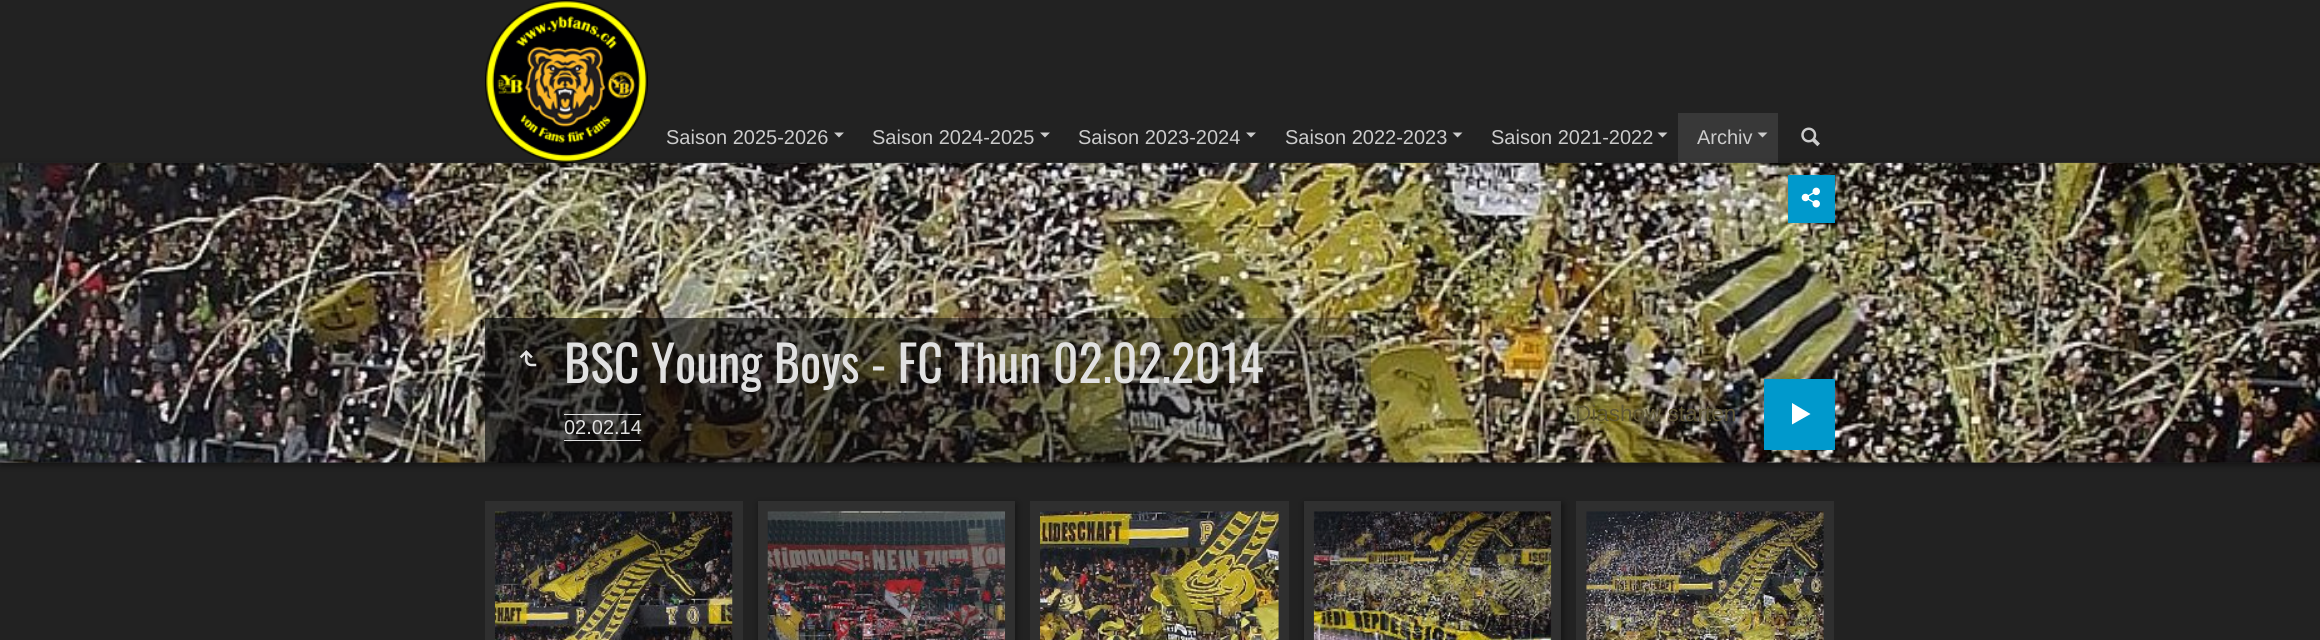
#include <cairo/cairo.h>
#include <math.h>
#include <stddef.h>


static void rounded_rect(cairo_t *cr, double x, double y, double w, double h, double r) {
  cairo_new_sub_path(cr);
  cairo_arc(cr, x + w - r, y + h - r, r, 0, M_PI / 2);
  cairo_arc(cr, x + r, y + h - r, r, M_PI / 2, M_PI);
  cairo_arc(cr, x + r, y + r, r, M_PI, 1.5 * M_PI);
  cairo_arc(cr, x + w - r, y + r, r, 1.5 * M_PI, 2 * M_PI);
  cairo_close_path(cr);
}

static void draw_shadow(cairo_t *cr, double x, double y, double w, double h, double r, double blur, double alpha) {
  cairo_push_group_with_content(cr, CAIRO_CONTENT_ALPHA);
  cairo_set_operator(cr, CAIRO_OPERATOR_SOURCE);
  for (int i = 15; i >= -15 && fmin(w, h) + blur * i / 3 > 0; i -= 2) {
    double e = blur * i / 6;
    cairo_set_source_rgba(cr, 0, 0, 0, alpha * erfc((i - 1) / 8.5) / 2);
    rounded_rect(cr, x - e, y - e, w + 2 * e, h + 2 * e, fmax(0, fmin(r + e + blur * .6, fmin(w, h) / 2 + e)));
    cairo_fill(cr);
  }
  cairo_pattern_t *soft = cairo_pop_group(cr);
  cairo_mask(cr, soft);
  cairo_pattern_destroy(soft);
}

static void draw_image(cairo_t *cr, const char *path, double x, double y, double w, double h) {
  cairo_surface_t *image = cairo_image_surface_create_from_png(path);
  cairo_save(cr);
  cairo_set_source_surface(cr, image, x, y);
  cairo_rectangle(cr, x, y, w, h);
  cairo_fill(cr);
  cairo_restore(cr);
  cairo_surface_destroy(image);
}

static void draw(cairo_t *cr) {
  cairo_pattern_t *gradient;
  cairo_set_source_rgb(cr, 34 / 255.0, 34 / 255.0, 34 / 255.0);
  cairo_paint(cr);
  cairo_set_source_rgb(cr, 0, 0, 0);
  draw_shadow(cr, 1, 165, 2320, 300, 0, 4, 0.5);
  cairo_set_source_rgba(cr, 34 / 255.0, 34 / 255.0, 34 / 255.0, 0.8);
  cairo_rectangle(cr, 0, 462, 2320, 1);
  cairo_fill(cr);
  draw_image(cr, "images/3.png", 0, 162, 2320, 301);
  cairo_rectangle(cr, 15, 162, 2305, 1);
  cairo_fill(cr);
  draw_image(cr, "images/1.png", 485, 0, 163, 163);
  cairo_set_source_rgb(cr, 204 / 255.0, 204 / 255.0, 204 / 255.0);
  cairo_new_path(cr);
  cairo_move_to(cr, 834, 132.5);
  cairo_line_to(cr, 844, 132.5);
  cairo_line_to(cr, 839, 137.5);
  cairo_close_path(cr);
  cairo_fill(cr);
  cairo_new_path(cr);
  cairo_move_to(cr, 1040, 132.5);
  cairo_line_to(cr, 1050, 132.5);
  cairo_line_to(cr, 1045, 137.5);
  cairo_close_path(cr);
  cairo_fill(cr);
  cairo_new_path(cr);
  cairo_move_to(cr, 1246, 132.5);
  cairo_line_to(cr, 1256, 132.5);
  cairo_line_to(cr, 1251, 137.5);
  cairo_close_path(cr);
  cairo_fill(cr);
  cairo_new_path(cr);
  cairo_move_to(cr, 1452.5, 132.5);
  cairo_line_to(cr, 1462.5, 132.5);
  cairo_line_to(cr, 1457.5, 137.5);
  cairo_close_path(cr);
  cairo_fill(cr);
  cairo_new_path(cr);
  cairo_move_to(cr, 1657.5, 132.5);
  cairo_line_to(cr, 1667.5, 132.5);
  cairo_line_to(cr, 1662.5, 137.5);
  cairo_close_path(cr);
  cairo_fill(cr);
  cairo_set_source_rgba(cr, 1, 1, 1, 0.1);
  cairo_rectangle(cr, 1678, 113, 100, 50);
  cairo_fill(cr);
  cairo_set_source_rgb(cr, 204 / 255.0, 204 / 255.0, 204 / 255.0);
  cairo_new_path(cr);
  cairo_move_to(cr, 1757.5, 132.5);
  cairo_line_to(cr, 1767.5, 132.5);
  cairo_line_to(cr, 1762.5, 137.5);
  cairo_close_path(cr);
  cairo_fill(cr);
  draw_image(cr, "images/2.png", 1801, 127, 19, 20);
  gradient = cairo_pattern_create_linear(485, 390, 1371, 390);
  cairo_pattern_add_color_stop_rgba(gradient, 0, 8 / 255.0, 8 / 255.0, 8 / 255.0, 0.7);
  cairo_pattern_add_color_stop_rgba(gradient, 0.6, 8 / 255.0, 8 / 255.0, 8 / 255.0, 0.45);
  cairo_pattern_add_color_stop_rgba(gradient, 1, 8 / 255.0, 8 / 255.0, 8 / 255.0, 0.2);
  cairo_set_source(cr, gradient);
  cairo_pattern_destroy(gradient);
  cairo_rectangle(cr, 485, 318, 886, 145);
  cairo_fill(cr);
  draw_image(cr, "images/4.png", 519, 350, 18, 17);
  cairo_set_source_rgb(cr, 225 / 255.0, 225 / 255.0, 225 / 255.0);
  cairo_rectangle(cr, 564, 414, 77, 1);
  cairo_fill(cr);
  cairo_rectangle(cr, 564, 440, 77, 1);
  cairo_fill(cr);
  cairo_set_source_rgb(cr, 0, 153 / 255.0, 204 / 255.0);
  cairo_rectangle(cr, 1788, 175, 47, 48);
  cairo_fill(cr);
  draw_image(cr, "images/5.png", 1801, 187, 19, 21);
  cairo_rectangle(cr, 1764, 379, 71, 71);
  cairo_fill(cr);
  cairo_set_source_rgb(cr, 1, 1, 1);
  cairo_new_path(cr);
  cairo_move_to(cr, 1792, 403);
  cairo_line_to(cr, 1810.5, 414);
  cairo_line_to(cr, 1792, 424.5);
  cairo_close_path(cr);
  cairo_fill(cr);
  cairo_set_source_rgba(cr, 68 / 255.0, 68 / 255.0, 68 / 255.0, 0.4);
  cairo_rectangle(cr, 485, 501, 258, 139);
  cairo_fill(cr);
  draw_image(cr, "images/6.png", 495, 511, 238, 129);
  cairo_set_source_rgb(cr, 0, 0, 0);
  draw_shadow(cr, 759, 504, 257, 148, 0, 4, 0.5);
  cairo_set_source_rgb(cr, 48 / 255.0, 48 / 255.0, 48 / 255.0);
  cairo_rectangle(cr, 758, 501, 257, 139);
  cairo_fill(cr);
  draw_image(cr, "images/7.png", 767, 511, 238, 129);
  cairo_set_source_rgba(cr, 68 / 255.0, 68 / 255.0, 68 / 255.0, 0.4);
  cairo_rectangle(cr, 1030, 501, 259, 139);
  cairo_fill(cr);
  draw_image(cr, "images/8.png", 1040, 511, 239, 129);
  cairo_set_source_rgb(cr, 0, 0, 0);
  draw_shadow(cr, 1305, 504, 258, 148, 0, 4, 0.5);
  cairo_set_source_rgb(cr, 48 / 255.0, 48 / 255.0, 48 / 255.0);
  cairo_rectangle(cr, 1304, 501, 257, 139);
  cairo_fill(cr);
  draw_image(cr, "images/9.png", 1313, 511, 239, 129);
  cairo_set_source_rgba(cr, 68 / 255.0, 68 / 255.0, 68 / 255.0, 0.4);
  cairo_rectangle(cr, 1576, 501, 258, 139);
  cairo_fill(cr);
  draw_image(cr, "images/10.png", 1586, 511, 238, 129);
  cairo_select_font_face(cr, "Liberation Sans", CAIRO_FONT_SLANT_NORMAL, CAIRO_FONT_WEIGHT_NORMAL);
  cairo_set_font_size(cr, 20);
  cairo_set_source_rgb(cr, 204 / 255.0, 204 / 255.0, 204 / 255.0);
  cairo_move_to(cr, 666, 144);
  cairo_show_text(cr, "Saison 2025-2026");
  cairo_move_to(cr, 872, 144);
  cairo_show_text(cr, "Saison 2024-2025");
  cairo_move_to(cr, 1078, 144);
  cairo_show_text(cr, "Saison 2023-2024");
  cairo_move_to(cr, 1285, 144);
  cairo_show_text(cr, "Saison 2022-2023");
  cairo_move_to(cr, 1491, 144);
  cairo_show_text(cr, "Saison 2021-2022");
  cairo_move_to(cr, 1697, 144);
  cairo_show_text(cr, "Archiv");
  cairo_select_font_face(cr, "Oswald", CAIRO_FONT_SLANT_NORMAL, CAIRO_FONT_WEIGHT_NORMAL);
  cairo_set_font_size(cr, 50);
  cairo_set_source_rgb(cr, 225 / 255.0, 225 / 255.0, 225 / 255.0);
  cairo_move_to(cr, 564, 383);
  cairo_show_text(cr, "BSC Young Boys - FC Thun 02.02.2014");
  cairo_select_font_face(cr, "Liberation Sans", CAIRO_FONT_SLANT_NORMAL, CAIRO_FONT_WEIGHT_NORMAL);
  cairo_set_font_size(cr, 20);
  cairo_move_to(cr, 564, 434);
  cairo_show_text(cr, "02.02.14");
  cairo_set_font_size(cr, 22.5);
  cairo_set_source_rgb(cr, 95 / 255.0, 87 / 255.0, 54 / 255.0);
  cairo_move_to(cr, 1575, 421);
  cairo_show_text(cr, "Diashow starten");
}

int main(void) {
  cairo_surface_t *surface = cairo_image_surface_create(CAIRO_FORMAT_RGB24, 2320, 640);
  cairo_t *cr = cairo_create(surface);
  cairo_font_options_t *options = cairo_font_options_create();
  cairo_font_options_set_hint_metrics(options, CAIRO_HINT_METRICS_OFF);
  cairo_font_options_set_hint_style(options, CAIRO_HINT_STYLE_NONE);
  cairo_set_font_options(cr, options);
  cairo_set_miter_limit(cr, 4);
  draw(cr);
  cairo_surface_write_to_png(surface, "out.png");
  cairo_font_options_destroy(options);
  cairo_destroy(cr);
  cairo_surface_destroy(surface);
  return 0;
}
